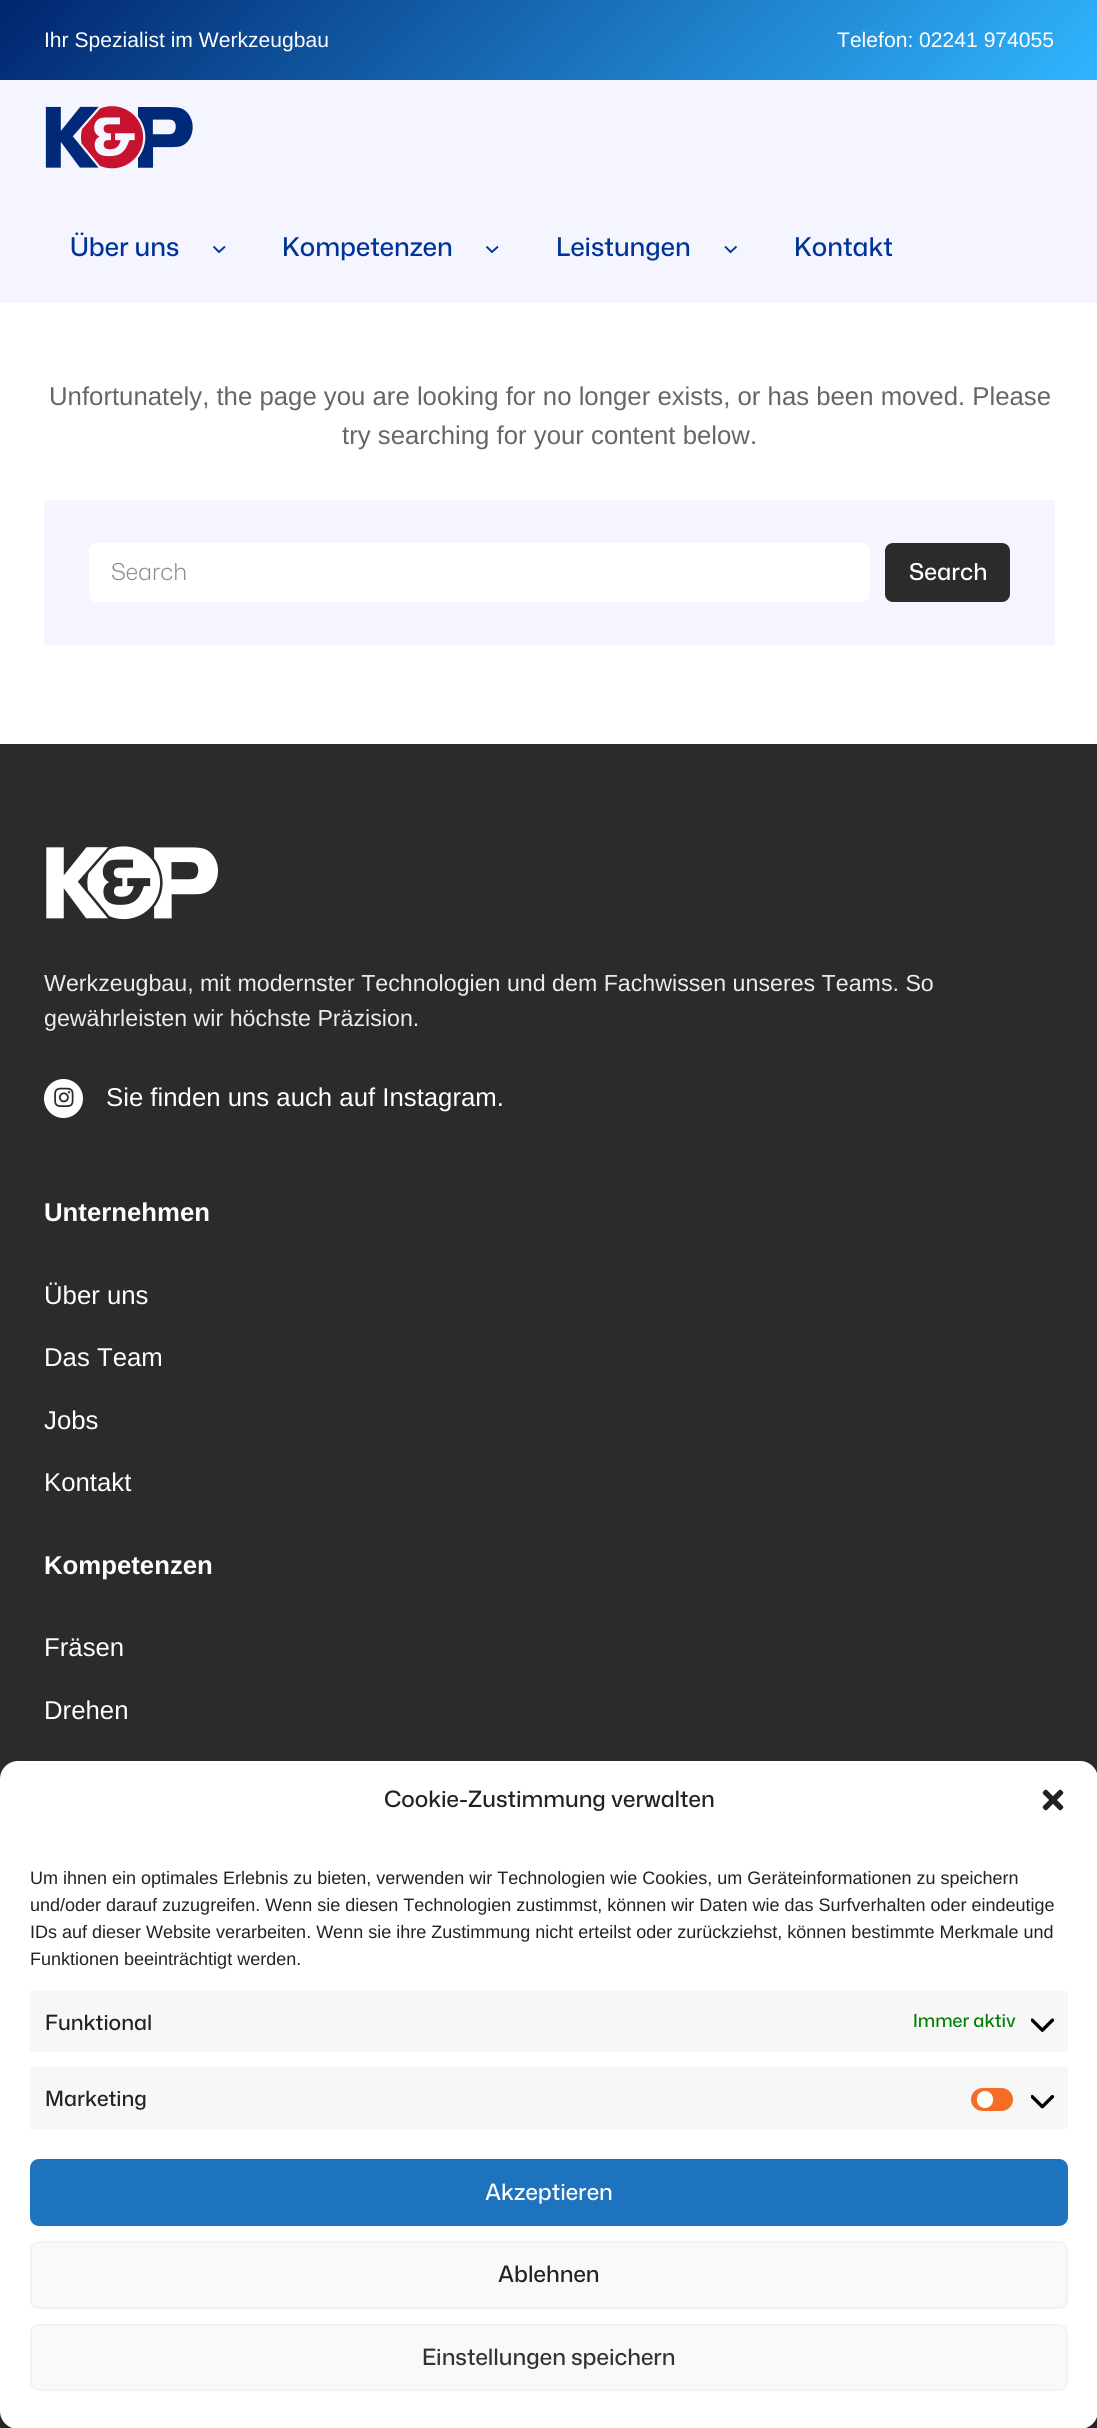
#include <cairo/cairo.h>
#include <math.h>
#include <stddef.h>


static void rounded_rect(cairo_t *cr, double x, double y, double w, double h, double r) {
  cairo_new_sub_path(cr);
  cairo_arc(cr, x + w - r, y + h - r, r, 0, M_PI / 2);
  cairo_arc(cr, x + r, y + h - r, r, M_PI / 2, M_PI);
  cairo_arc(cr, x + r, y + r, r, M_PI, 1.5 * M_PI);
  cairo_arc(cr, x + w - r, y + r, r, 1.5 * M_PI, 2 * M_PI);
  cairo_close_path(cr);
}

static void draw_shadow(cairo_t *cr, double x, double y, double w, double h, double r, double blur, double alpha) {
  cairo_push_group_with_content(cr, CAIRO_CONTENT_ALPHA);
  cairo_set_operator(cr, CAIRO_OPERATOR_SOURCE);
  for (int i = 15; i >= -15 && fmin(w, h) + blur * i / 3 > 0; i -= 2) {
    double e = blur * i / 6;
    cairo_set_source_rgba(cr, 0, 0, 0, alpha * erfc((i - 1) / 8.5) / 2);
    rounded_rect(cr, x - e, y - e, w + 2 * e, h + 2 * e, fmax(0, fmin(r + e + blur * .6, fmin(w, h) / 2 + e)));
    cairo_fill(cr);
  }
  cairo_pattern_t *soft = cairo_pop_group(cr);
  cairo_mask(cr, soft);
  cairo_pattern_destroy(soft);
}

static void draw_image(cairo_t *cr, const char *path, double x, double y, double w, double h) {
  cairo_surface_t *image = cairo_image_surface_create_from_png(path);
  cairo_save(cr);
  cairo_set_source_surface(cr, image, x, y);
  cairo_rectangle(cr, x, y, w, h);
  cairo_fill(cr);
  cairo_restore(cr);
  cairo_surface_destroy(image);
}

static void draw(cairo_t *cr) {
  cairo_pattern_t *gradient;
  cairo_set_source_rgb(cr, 1, 1, 1);
  cairo_paint(cr);
  gradient = cairo_pattern_create_linear(255, -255, 843, 334);
  cairo_pattern_add_color_stop_rgba(gradient, 0, 0, 37 / 255.0, 110 / 255.0, 1);
  cairo_pattern_add_color_stop_rgba(gradient, 1, 49 / 255.0, 181 / 255.0, 1, 1);
  cairo_set_source(cr, gradient);
  cairo_pattern_destroy(gradient);
  cairo_rectangle(cr, 0, 0, 1097, 80);
  cairo_fill(cr);
  cairo_set_source_rgb(cr, 244 / 255.0, 245 / 255.0, 1);
  cairo_rectangle(cr, 0, 80, 1097, 223);
  cairo_fill(cr);
  draw_image(cr, "images/1.png", 45, 106, 148, 63);
  cairo_new_path(cr);
  cairo_move_to(cr, 213.5, 246.5);
  cairo_line_to(cr, 219, 252);
  cairo_line_to(cr, 225, 246.5);
  cairo_set_source_rgb(cr, 0, 51 / 255.0, 152 / 255.0);
  cairo_set_line_width(cr, 1.9);
  cairo_stroke(cr);
  cairo_new_path(cr);
  cairo_move_to(cr, 486.5, 246.5);
  cairo_line_to(cr, 492, 252);
  cairo_line_to(cr, 498, 246.5);
  cairo_stroke(cr);
  cairo_new_path(cr);
  cairo_move_to(cr, 725, 246.5);
  cairo_line_to(cr, 730.5, 252);
  cairo_line_to(cr, 736.5, 246.5);
  cairo_stroke(cr);
  cairo_set_source_rgb(cr, 244 / 255.0, 245 / 255.0, 1);
  cairo_rectangle(cr, 44, 500, 1011, 145);
  cairo_fill(cr);
  cairo_set_source_rgb(cr, 1, 1, 1);
  rounded_rect(cr, 89, 543, 781, 59, 8);
  cairo_fill(cr);
  cairo_set_source_rgb(cr, 44 / 255.0, 42 / 255.0, 42 / 255.0);
  rounded_rect(cr, 885, 543, 125, 59, 8);
  cairo_fill(cr);
  cairo_rectangle(cr, 0, 744, 1097, 1684);
  cairo_fill(cr);
  draw_image(cr, "images/2.png", 46, 846, 172, 74);
  cairo_set_source_rgb(cr, 1, 1, 1);
  cairo_arc(cr, 63.5, 1098.5, 19.5, 0, 2 * M_PI);
  cairo_fill(cr);
  draw_image(cr, "images/3.png", 54, 1087, 20, 20);
  cairo_set_source_rgb(cr, 0, 0, 0);
  draw_shadow(cr, 0, 1770, 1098, 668, 18, 4.5, 0.23);
  cairo_set_source_rgb(cr, 1, 1, 1);
  rounded_rect(cr, 0, 1761, 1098, 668, 18);
  cairo_fill(cr);
  draw_image(cr, "images/4.png", 1042, 1789, 22, 22);
  cairo_set_source_rgb(cr, 247 / 255.0, 247 / 255.0, 247 / 255.0);
  cairo_rectangle(cr, 30, 1991, 1038, 61);
  cairo_fill(cr);
  draw_image(cr, "images/5.png", 1031, 2018, 24, 14);
  cairo_rectangle(cr, 30, 2067, 1038, 62);
  cairo_fill(cr);
  cairo_set_source_rgb(cr, 245 / 255.0, 110 / 255.0, 40 / 255.0);
  rounded_rect(cr, 971, 2088, 42, 23, 11.5);
  cairo_fill(cr);
  cairo_set_source_rgb(cr, 1, 1, 1);
  rounded_rect(cr, 977, 2091, 16, 17, 8);
  cairo_fill(cr);
  draw_image(cr, "images/6.png", 1031, 2095, 24, 14);
  cairo_set_source_rgb(cr, 30 / 255.0, 115 / 255.0, 190 / 255.0);
  rounded_rect(cr, 31, 2160, 1036, 65, 8);
  cairo_fill_preserve(cr);
  cairo_set_line_width(cr, 2);
  cairo_stroke(cr);
  cairo_set_source_rgb(cr, 249 / 255.0, 249 / 255.0, 249 / 255.0);
  rounded_rect(cr, 31, 2242, 1036, 66, 8);
  cairo_fill_preserve(cr);
  cairo_set_source_rgb(cr, 242 / 255.0, 242 / 255.0, 242 / 255.0);
  cairo_stroke(cr);
  cairo_set_source_rgb(cr, 249 / 255.0, 249 / 255.0, 249 / 255.0);
  rounded_rect(cr, 31, 2325, 1036, 65, 8);
  cairo_fill_preserve(cr);
  cairo_set_source_rgb(cr, 242 / 255.0, 242 / 255.0, 242 / 255.0);
  cairo_stroke(cr);
  cairo_select_font_face(cr, "Liberation Sans", CAIRO_FONT_SLANT_NORMAL, CAIRO_FONT_WEIGHT_NORMAL);
  cairo_set_font_size(cr, 21.1);
  cairo_set_source_rgb(cr, 1, 1, 1);
  cairo_move_to(cr, 44, 47);
  cairo_show_text(cr, "Ihr Spezialist im Werkzeugbau");
  cairo_move_to(cr, 837, 47);
  cairo_show_text(cr, "Telefon: 02241 974055");
  cairo_select_font_face(cr, "Mona Sans Medium", CAIRO_FONT_SLANT_NORMAL, CAIRO_FONT_WEIGHT_NORMAL);
  cairo_set_font_size(cr, 25.75);
  cairo_set_source_rgb(cr, 0, 51 / 255.0, 152 / 255.0);
  cairo_move_to(cr, 70, 256);
  cairo_show_text(cr, "Über uns");
  cairo_move_to(cr, 282, 256);
  cairo_show_text(cr, "Kompetenzen");
  cairo_move_to(cr, 556, 256);
  cairo_show_text(cr, "Leistungen");
  cairo_move_to(cr, 794, 256);
  cairo_show_text(cr, "Kontakt");
  cairo_select_font_face(cr, "Liberation Sans", CAIRO_FONT_SLANT_NORMAL, CAIRO_FONT_WEIGHT_NORMAL);
  cairo_set_source_rgb(cr, 102 / 255.0, 102 / 255.0, 102 / 255.0);
  cairo_move_to(cr, 49, 405);
  cairo_show_text(cr, "Unfortunately, the page you are looking for no longer exists, or has been moved. Please");
  cairo_move_to(cr, 342, 444);
  cairo_show_text(cr, "try searching for your content below.");
  cairo_select_font_face(cr, "Mona Sans Light", CAIRO_FONT_SLANT_NORMAL, CAIRO_FONT_WEIGHT_NORMAL);
  cairo_set_font_size(cr, 23.2);
  cairo_set_source_rgb(cr, 140 / 255.0, 140 / 255.0, 140 / 255.0);
  cairo_move_to(cr, 111, 580);
  cairo_show_text(cr, "Search");
  cairo_select_font_face(cr, "Mona Sans Medium", CAIRO_FONT_SLANT_NORMAL, CAIRO_FONT_WEIGHT_NORMAL);
  cairo_set_source_rgb(cr, 1, 1, 1);
  cairo_move_to(cr, 909, 580);
  cairo_show_text(cr, "Search");
  cairo_select_font_face(cr, "Liberation Sans", CAIRO_FONT_SLANT_NORMAL, CAIRO_FONT_WEIGHT_NORMAL);
  cairo_set_source_rgb(cr, 236 / 255.0, 236 / 255.0, 236 / 255.0);
  cairo_move_to(cr, 44, 991);
  cairo_show_text(cr, "Werkzeugbau, mit modernster Technologien und dem Fachwissen unseres Teams. So");
  cairo_move_to(cr, 44, 1026);
  cairo_show_text(cr, "gewährleisten wir höchste Präzision.");
  cairo_set_font_size(cr, 25.75);
  cairo_set_source_rgb(cr, 1, 1, 1);
  cairo_move_to(cr, 106, 1106);
  cairo_show_text(cr, "Sie finden uns auch auf Instagram.");
  cairo_select_font_face(cr, "Liberation Sans", CAIRO_FONT_SLANT_NORMAL, CAIRO_FONT_WEIGHT_BOLD);
  cairo_move_to(cr, 44, 1221);
  cairo_show_text(cr, "Unternehmen");
  cairo_select_font_face(cr, "Liberation Sans", CAIRO_FONT_SLANT_NORMAL, CAIRO_FONT_WEIGHT_NORMAL);
  cairo_move_to(cr, 44, 1304);
  cairo_show_text(cr, "Über uns");
  cairo_move_to(cr, 44, 1366);
  cairo_show_text(cr, "Das Team");
  cairo_move_to(cr, 44, 1429);
  cairo_show_text(cr, "Jobs");
  cairo_move_to(cr, 44, 1491);
  cairo_show_text(cr, "Kontakt");
  cairo_select_font_face(cr, "Liberation Sans", CAIRO_FONT_SLANT_NORMAL, CAIRO_FONT_WEIGHT_BOLD);
  cairo_move_to(cr, 44, 1574);
  cairo_show_text(cr, "Kompetenzen");
  cairo_select_font_face(cr, "Liberation Sans", CAIRO_FONT_SLANT_NORMAL, CAIRO_FONT_WEIGHT_NORMAL);
  cairo_move_to(cr, 44, 1656);
  cairo_show_text(cr, "Fräsen");
  cairo_move_to(cr, 44, 1719);
  cairo_show_text(cr, "Drehen");
  cairo_select_font_face(cr, "Mona Sans Medium", CAIRO_FONT_SLANT_NORMAL, CAIRO_FONT_WEIGHT_NORMAL);
  cairo_set_font_size(cr, 22.5);
  cairo_set_source_rgb(cr, 34 / 255.0, 34 / 255.0, 34 / 255.0);
  cairo_move_to(cr, 384, 1807);
  cairo_show_text(cr, "Cookie-Zustimmung verwalten");
  cairo_select_font_face(cr, "Liberation Sans", CAIRO_FONT_SLANT_NORMAL, CAIRO_FONT_WEIGHT_NORMAL);
  cairo_set_font_size(cr, 18);
  cairo_move_to(cr, 30, 1884);
  cairo_show_text(cr, "Um ihnen ein optimales Erlebnis zu bieten, verwenden wir Technologien wie Cookies, um Geräteinformationen zu speichern");
  cairo_move_to(cr, 30, 1911);
  cairo_show_text(cr, "und/oder darauf zuzugreifen. Wenn sie diesen Technologien zustimmst, können wir Daten wie das Surfverhalten oder eindeutige");
  cairo_move_to(cr, 30, 1938);
  cairo_show_text(cr, "IDs auf dieser Website verarbeiten. Wenn sie ihre Zustimmung nicht erteilst oder zurückziehst, können bestimmte Merkmale und");
  cairo_move_to(cr, 30, 1965);
  cairo_show_text(cr, "Funktionen beeinträchtigt werden.");
  cairo_select_font_face(cr, "Mona Sans Medium", CAIRO_FONT_SLANT_NORMAL, CAIRO_FONT_WEIGHT_NORMAL);
  cairo_set_font_size(cr, 21);
  cairo_move_to(cr, 45, 2030);
  cairo_show_text(cr, "Funktional");
  cairo_set_font_size(cr, 18);
  cairo_set_source_rgb(cr, 0, 128 / 255.0, 0);
  cairo_move_to(cr, 913, 2027);
  cairo_show_text(cr, "Immer aktiv");
  cairo_set_font_size(cr, 21);
  cairo_set_source_rgb(cr, 34 / 255.0, 34 / 255.0, 34 / 255.0);
  cairo_move_to(cr, 45, 2106);
  cairo_show_text(cr, "Marketing");
  cairo_set_font_size(cr, 22.5);
  cairo_set_source_rgb(cr, 1, 1, 1);
  cairo_move_to(cr, 485, 2200);
  cairo_show_text(cr, "Akzeptieren");
  cairo_set_source_rgb(cr, 34 / 255.0, 34 / 255.0, 34 / 255.0);
  cairo_move_to(cr, 498, 2282);
  cairo_show_text(cr, "Ablehnen");
  cairo_set_source_rgb(cr, 51 / 255.0, 51 / 255.0, 51 / 255.0);
  cairo_move_to(cr, 422, 2365);
  cairo_show_text(cr, "Einstellungen speichern");
}

int main(void) {
  cairo_surface_t *surface = cairo_image_surface_create(CAIRO_FORMAT_RGB24, 1097, 2428);
  cairo_t *cr = cairo_create(surface);
  cairo_font_options_t *options = cairo_font_options_create();
  cairo_font_options_set_hint_metrics(options, CAIRO_HINT_METRICS_OFF);
  cairo_font_options_set_hint_style(options, CAIRO_HINT_STYLE_NONE);
  cairo_set_font_options(cr, options);
  cairo_set_miter_limit(cr, 4);
  draw(cr);
  cairo_surface_write_to_png(surface, "out.png");
  cairo_font_options_destroy(options);
  cairo_destroy(cr);
  cairo_surface_destroy(surface);
  return 0;
}
